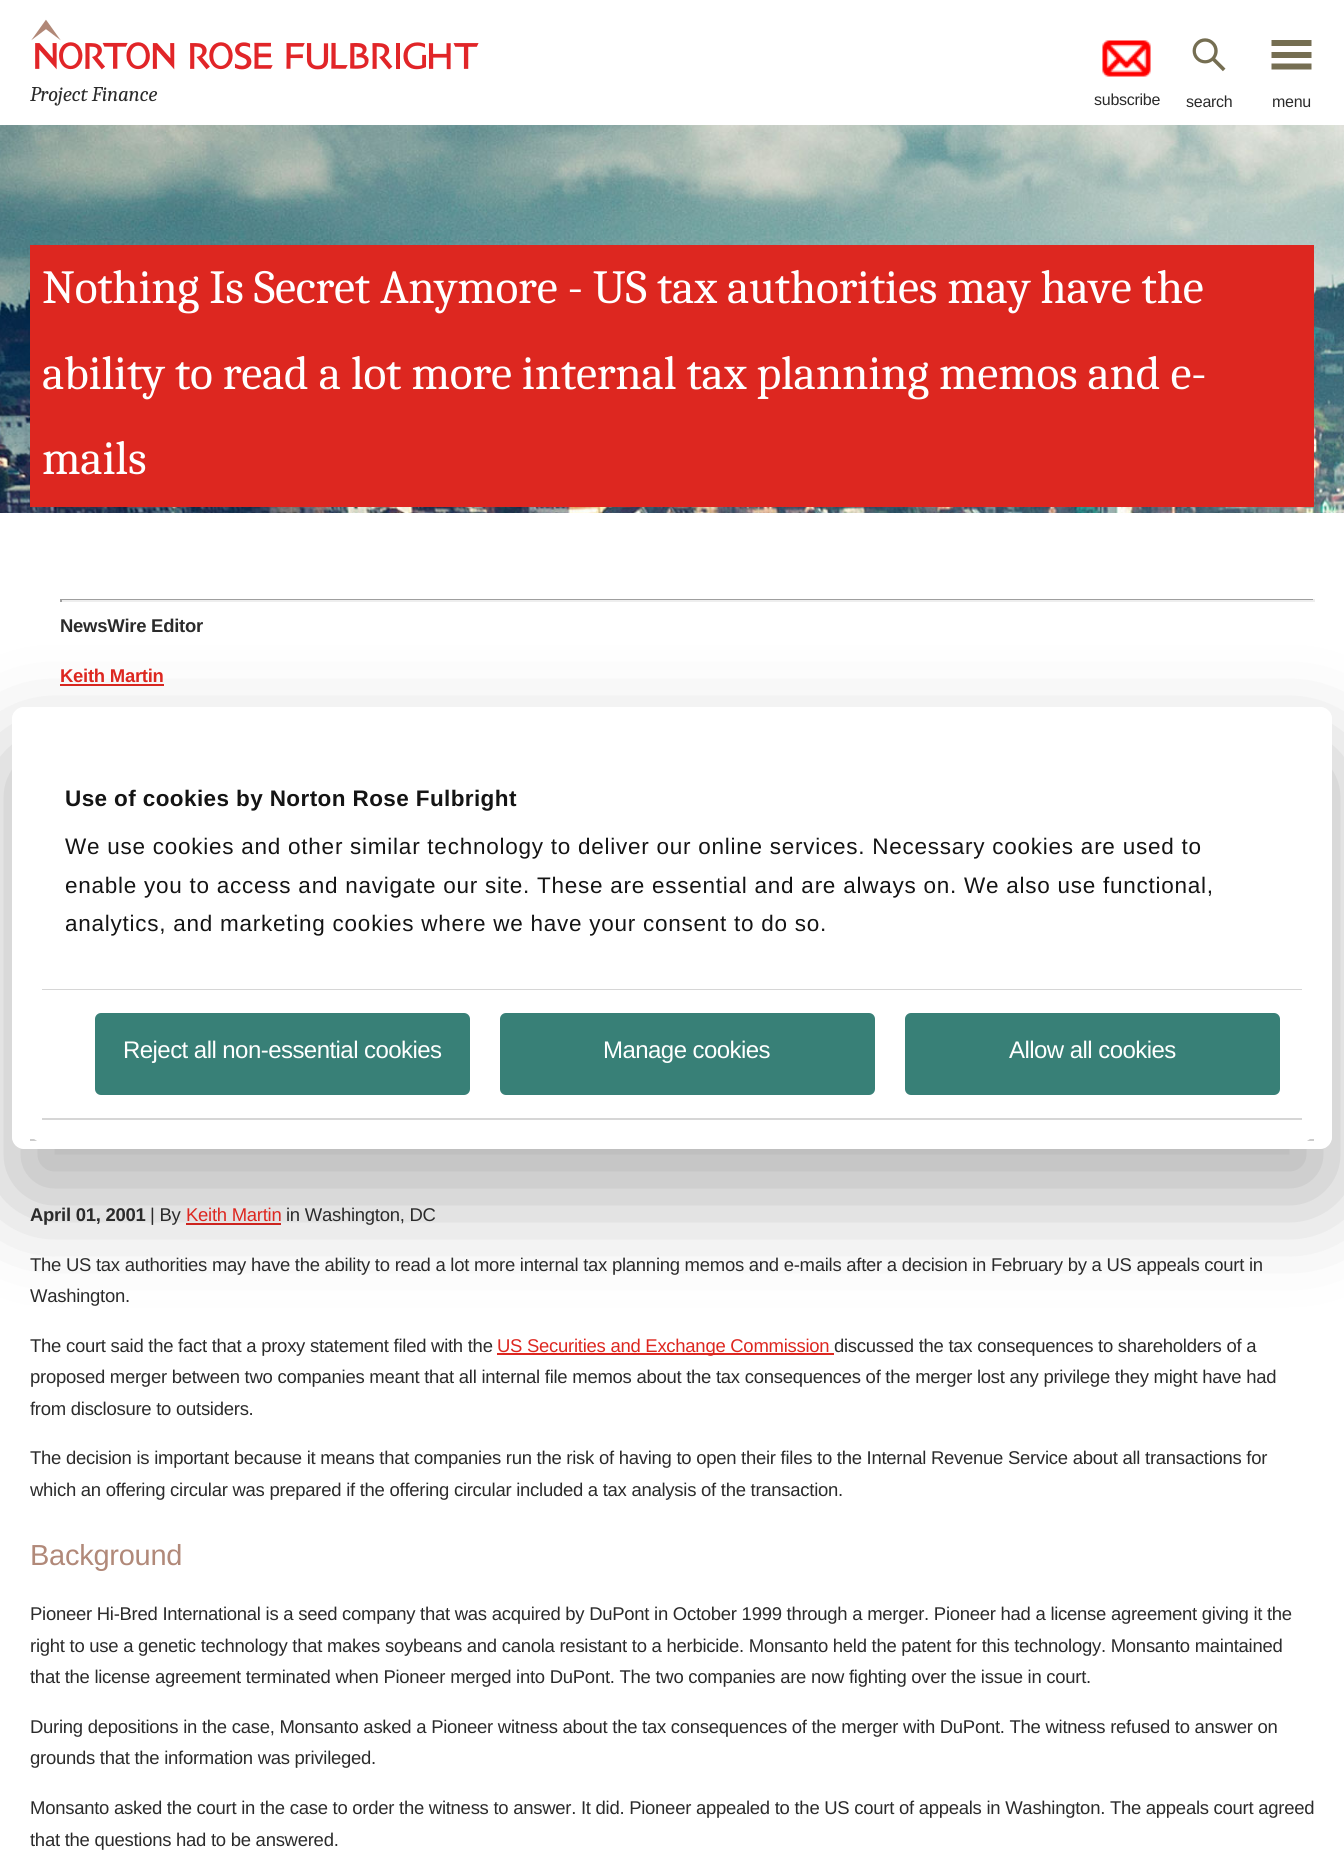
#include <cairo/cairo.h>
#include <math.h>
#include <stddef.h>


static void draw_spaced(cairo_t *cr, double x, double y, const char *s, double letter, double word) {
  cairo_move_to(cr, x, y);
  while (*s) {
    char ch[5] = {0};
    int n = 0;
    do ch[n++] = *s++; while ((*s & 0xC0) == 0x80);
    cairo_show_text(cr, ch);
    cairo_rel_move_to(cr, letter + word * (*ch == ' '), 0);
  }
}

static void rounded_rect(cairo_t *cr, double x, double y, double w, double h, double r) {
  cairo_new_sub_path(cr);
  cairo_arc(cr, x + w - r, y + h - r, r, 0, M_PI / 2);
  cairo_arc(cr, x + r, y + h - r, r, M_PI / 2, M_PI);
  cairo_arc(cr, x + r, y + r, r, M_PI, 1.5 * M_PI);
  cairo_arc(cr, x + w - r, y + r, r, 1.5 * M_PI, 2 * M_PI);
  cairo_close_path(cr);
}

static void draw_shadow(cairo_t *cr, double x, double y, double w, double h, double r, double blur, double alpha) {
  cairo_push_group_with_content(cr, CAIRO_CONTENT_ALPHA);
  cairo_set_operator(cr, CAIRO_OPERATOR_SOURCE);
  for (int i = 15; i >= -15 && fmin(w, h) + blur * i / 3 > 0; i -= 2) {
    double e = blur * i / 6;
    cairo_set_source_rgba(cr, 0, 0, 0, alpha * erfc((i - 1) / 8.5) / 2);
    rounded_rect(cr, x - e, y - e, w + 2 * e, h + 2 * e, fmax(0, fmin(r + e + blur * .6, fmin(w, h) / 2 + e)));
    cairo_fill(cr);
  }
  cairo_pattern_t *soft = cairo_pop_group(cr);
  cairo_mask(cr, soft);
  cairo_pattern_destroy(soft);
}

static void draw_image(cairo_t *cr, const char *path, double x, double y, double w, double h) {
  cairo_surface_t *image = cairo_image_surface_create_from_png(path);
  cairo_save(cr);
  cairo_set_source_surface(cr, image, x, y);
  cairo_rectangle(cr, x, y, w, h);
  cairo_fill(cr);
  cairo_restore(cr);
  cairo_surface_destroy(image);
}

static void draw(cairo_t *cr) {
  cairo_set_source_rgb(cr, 1, 1, 1);
  cairo_paint(cr);
  draw_image(cr, "images/1.png", 31, 19, 448, 51);
  draw_image(cr, "images/2.png", 1102, 40, 49, 37);
  draw_image(cr, "images/3.png", 1192, 38, 34, 34);
  cairo_set_source_rgb(cr, 117 / 255.0, 110 / 255.0, 82 / 255.0);
  cairo_new_path(cr);
  cairo_move_to(cr, 1311.5, 46);
  cairo_line_to(cr, 1271.5, 46);
  cairo_line_to(cr, 1271.5, 40);
  cairo_line_to(cr, 1311.5, 40);
  cairo_close_path(cr);
  cairo_move_to(cr, 1311.5, 52);
  cairo_line_to(cr, 1271.5, 52);
  cairo_line_to(cr, 1271.5, 58);
  cairo_line_to(cr, 1311.5, 58);
  cairo_close_path(cr);
  cairo_move_to(cr, 1311.5, 63.5);
  cairo_line_to(cr, 1271.5, 63.5);
  cairo_line_to(cr, 1271.5, 69.5);
  cairo_line_to(cr, 1311.5, 69.5);
  cairo_close_path(cr);
  cairo_fill(cr);
  draw_image(cr, "images/4.png", 0, 125, 1344, 388);
  cairo_set_source_rgb(cr, 221 / 255.0, 39 / 255.0, 32 / 255.0);
  cairo_rectangle(cr, 30, 245, 1284, 262);
  cairo_fill(cr);
  cairo_set_source_rgb(cr, 204 / 255.0, 204 / 255.0, 204 / 255.0);
  cairo_rectangle(cr, 30, 1139, 1284, 2);
  cairo_fill(cr);
  cairo_set_source_rgb(cr, 159 / 255.0, 159 / 255.0, 159 / 255.0);
  cairo_rectangle(cr, 60, 599, 1254, 1);
  cairo_fill(cr);
  cairo_set_source_rgb(cr, 238 / 255.0, 238 / 255.0, 238 / 255.0);
  cairo_rectangle(cr, 1313, 599, 2, 3);
  cairo_fill(cr);
  cairo_rectangle(cr, 60, 600, 1254, 2);
  cairo_fill(cr);
  cairo_set_source_rgb(cr, 159 / 255.0, 159 / 255.0, 159 / 255.0);
  cairo_rectangle(cr, 60, 599, 2, 3);
  cairo_fill(cr);
  cairo_set_source_rgb(cr, 221 / 255.0, 39 / 255.0, 32 / 255.0);
  cairo_rectangle(cr, 60, 684, 104, 2);
  cairo_fill(cr);
  cairo_rectangle(cr, 186, 1223, 95, 2);
  cairo_fill(cr);
  cairo_rectangle(cr, 497, 1353, 337, 2);
  cairo_fill(cr);
  cairo_save(cr);
  cairo_set_fill_rule(cr, CAIRO_FILL_RULE_EVEN_ODD);
  cairo_new_path(cr);
  cairo_move_to(cr, 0, 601);
  cairo_line_to(cr, 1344, 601);
  cairo_line_to(cr, 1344, 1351);
  cairo_line_to(cr, 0, 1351);
  cairo_close_path(cr);
  cairo_move_to(cr, 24, 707);
  cairo_line_to(cr, 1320, 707);
  cairo_curve_to(cr, 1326.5, 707, 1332, 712.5, 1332, 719);
  cairo_line_to(cr, 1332, 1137);
  cairo_curve_to(cr, 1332, 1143.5, 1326.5, 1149, 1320, 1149);
  cairo_line_to(cr, 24, 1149);
  cairo_curve_to(cr, 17.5, 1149, 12, 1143.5, 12, 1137);
  cairo_line_to(cr, 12, 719);
  cairo_curve_to(cr, 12, 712.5, 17.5, 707, 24, 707);
  cairo_close_path(cr);
  cairo_clip(cr);
  cairo_set_source_rgb(cr, 0, 0, 0);
  draw_shadow(cr, 12, 755, 1320, 442, 12, 51, 0.3);
  cairo_restore(cr);
  cairo_set_source_rgb(cr, 1, 1, 1);
  rounded_rect(cr, 12, 707, 1320, 442, 53);
  cairo_fill(cr);
  cairo_set_source_rgb(cr, 214 / 255.0, 214 / 255.0, 214 / 255.0);
  cairo_rectangle(cr, 42, 989, 1260, 1);
  cairo_fill(cr);
  cairo_rectangle(cr, 42, 1118, 1260, 2);
  cairo_fill(cr);
  cairo_set_source_rgb(cr, 56 / 255.0, 128 / 255.0, 119 / 255.0);
  rounded_rect(cr, 95, 1013, 375, 82, 6);
  cairo_fill(cr);
  rounded_rect(cr, 500, 1013, 375, 82, 6);
  cairo_fill(cr);
  rounded_rect(cr, 905, 1013, 375, 82, 6);
  cairo_fill(cr);
  cairo_select_font_face(cr, "Caladea", CAIRO_FONT_SLANT_ITALIC, CAIRO_FONT_WEIGHT_NORMAL);
  cairo_set_font_size(cr, 21);
  cairo_set_source_rgb(cr, 43 / 255.0, 43 / 255.0, 43 / 255.0);
  draw_spaced(cr, 30, 101, "Project Finance", -0.26, 0);
  cairo_select_font_face(cr, "Liberation Sans", CAIRO_FONT_SLANT_NORMAL, CAIRO_FONT_WEIGHT_NORMAL);
  cairo_set_font_size(cr, 16);
  draw_spaced(cr, 1094, 105, "subscribe", -0.26, 0);
  draw_spaced(cr, 1186, 107, "search", -0.26, 0);
  draw_spaced(cr, 1272, 107, "menu", -0.26, 0);
  cairo_select_font_face(cr, "Caladea", CAIRO_FONT_SLANT_NORMAL, CAIRO_FONT_WEIGHT_NORMAL);
  cairo_set_font_size(cr, 47.5);
  cairo_set_source_rgb(cr, 1, 1, 1);
  draw_spaced(cr, 42, 303, "Nothing Is Secret Anymore - US tax authorities may have the", -0.26, 0);
  draw_spaced(cr, 42, 389, "ability to read a lot more internal tax planning memos and e-", -0.26, 0);
  draw_spaced(cr, 42, 474, "mails", -0.26, 0);
  cairo_select_font_face(cr, "Liberation Sans", CAIRO_FONT_SLANT_NORMAL, CAIRO_FONT_WEIGHT_BOLD);
  cairo_set_font_size(cr, 18.48);
  cairo_set_source_rgb(cr, 43 / 255.0, 43 / 255.0, 43 / 255.0);
  draw_spaced(cr, 60, 632, "NewsWire Editor", -0.26, 0);
  cairo_set_source_rgb(cr, 221 / 255.0, 39 / 255.0, 32 / 255.0);
  draw_spaced(cr, 60, 682, "Keith Martin", -0.26, 0);
  cairo_set_source_rgb(cr, 43 / 255.0, 43 / 255.0, 43 / 255.0);
  draw_spaced(cr, 30, 1221, "April 01, 2001", -0.26, 0);
  cairo_select_font_face(cr, "Liberation Sans", CAIRO_FONT_SLANT_NORMAL, CAIRO_FONT_WEIGHT_NORMAL);
  draw_spaced(cr, 150, 1221, "| By", -0.26, 0);
  cairo_set_source_rgb(cr, 221 / 255.0, 39 / 255.0, 32 / 255.0);
  draw_spaced(cr, 186, 1221, "Keith Martin", -0.26, 0);
  cairo_set_source_rgb(cr, 43 / 255.0, 43 / 255.0, 43 / 255.0);
  draw_spaced(cr, 286, 1221, "in Washington, DC", -0.26, 0);
  draw_spaced(cr, 30, 1271, "The US tax authorities may have the ability to read a lot more internal tax planning memos and e-mails after a decision in February by a US appeals court in", -0.26, 0);
  draw_spaced(cr, 30, 1302, "Washington.", -0.26, 0);
  draw_spaced(cr, 30, 1352, "The court said the fact that a proxy statement filed with the", -0.26, 0);
  cairo_set_source_rgb(cr, 221 / 255.0, 39 / 255.0, 32 / 255.0);
  draw_spaced(cr, 497, 1352, "US Securities and Exchange Commission", -0.26, 0);
  cairo_set_source_rgb(cr, 43 / 255.0, 43 / 255.0, 43 / 255.0);
  draw_spaced(cr, 834, 1352, "discussed the tax consequences to shareholders of a", -0.26, 0);
  draw_spaced(cr, 30, 1383, "proposed merger between two companies meant that all internal file memos about the tax consequences of the merger lost any privilege they might have had", -0.26, 0);
  draw_spaced(cr, 30, 1415, "from disclosure to outsiders.", -0.26, 0);
  draw_spaced(cr, 30, 1464, "The decision is important because it means that companies run the risk of having to open their files to the Internal Revenue Service about all transactions for", -0.26, 0);
  draw_spaced(cr, 30, 1496, "which an offering circular was prepared if the offering circular included a tax analysis of the transaction.", -0.26, 0);
  cairo_set_font_size(cr, 29);
  cairo_set_source_rgb(cr, 177 / 255.0, 137 / 255.0, 121 / 255.0);
  draw_spaced(cr, 30, 1565, "Background", -0.26, 0);
  cairo_set_font_size(cr, 18.48);
  cairo_set_source_rgb(cr, 43 / 255.0, 43 / 255.0, 43 / 255.0);
  draw_spaced(cr, 30, 1620, "Pioneer Hi-Bred International is a seed company that was acquired by DuPont in October 1999 through a merger. Pioneer had a license agreement giving it the", -0.26, 0);
  draw_spaced(cr, 30, 1652, "right to use a genetic technology that makes soybeans and canola resistant to a herbicide. Monsanto held the patent for this technology. Monsanto maintained", -0.26, 0);
  draw_spaced(cr, 30, 1683, "that the license agreement terminated when Pioneer merged into DuPont. The two companies are now fighting over the issue in court.", -0.26, 0);
  draw_spaced(cr, 30, 1733, "During depositions in the case, Monsanto asked a Pioneer witness about the tax consequences of the merger with DuPont. The witness refused to answer on", -0.26, 0);
  draw_spaced(cr, 30, 1764, "grounds that the information was privileged.", -0.26, 0);
  draw_spaced(cr, 30, 1814, "Monsanto asked the court in the case to order the witness to answer. It did. Pioneer appealed to the US court of appeals in Washington. The appeals court agreed", -0.26, 0);
  draw_spaced(cr, 30, 1846, "that the questions had to be answered.", -0.26, 0);
  cairo_select_font_face(cr, "Liberation Sans", CAIRO_FONT_SLANT_NORMAL, CAIRO_FONT_WEIGHT_BOLD);
  cairo_set_font_size(cr, 22.5);
  cairo_set_source_rgb(cr, 20 / 255.0, 20 / 255.0, 20 / 255.0);
  draw_spaced(cr, 65, 806, "Use of cookies by Norton Rose Fulbright", 0.4, 0);
  cairo_select_font_face(cr, "Liberation Sans", CAIRO_FONT_SLANT_NORMAL, CAIRO_FONT_WEIGHT_NORMAL);
  draw_spaced(cr, 65, 854, "We use cookies and other similar technology to deliver our online services. Necessary cookies are used to", 0.75, 0);
  draw_spaced(cr, 65, 893, "enable you to access and navigate our site. These are essential and are always on. We also use functional,", 0.75, 0);
  draw_spaced(cr, 65, 931, "analytics, and marketing cookies where we have your consent to do so.", 0.75, 0);
  cairo_set_font_size(cr, 24);
  cairo_set_source_rgb(cr, 1, 1, 1);
  draw_spaced(cr, 123, 1058, "Reject all non-essential cookies", -0.55, 0);
  draw_spaced(cr, 603, 1058, "Manage cookies", -0.55, 0);
  draw_spaced(cr, 1009, 1058, "Allow all cookies", -0.55, 0);
}

int main(void) {
  cairo_surface_t *surface = cairo_image_surface_create(CAIRO_FORMAT_RGB24, 1344, 1852);
  cairo_t *cr = cairo_create(surface);
  cairo_font_options_t *options = cairo_font_options_create();
  cairo_font_options_set_hint_metrics(options, CAIRO_HINT_METRICS_OFF);
  cairo_font_options_set_hint_style(options, CAIRO_HINT_STYLE_NONE);
  cairo_set_font_options(cr, options);
  cairo_set_miter_limit(cr, 4);
  draw(cr);
  cairo_surface_write_to_png(surface, "out.png");
  cairo_font_options_destroy(options);
  cairo_destroy(cr);
  cairo_surface_destroy(surface);
  return 0;
}
